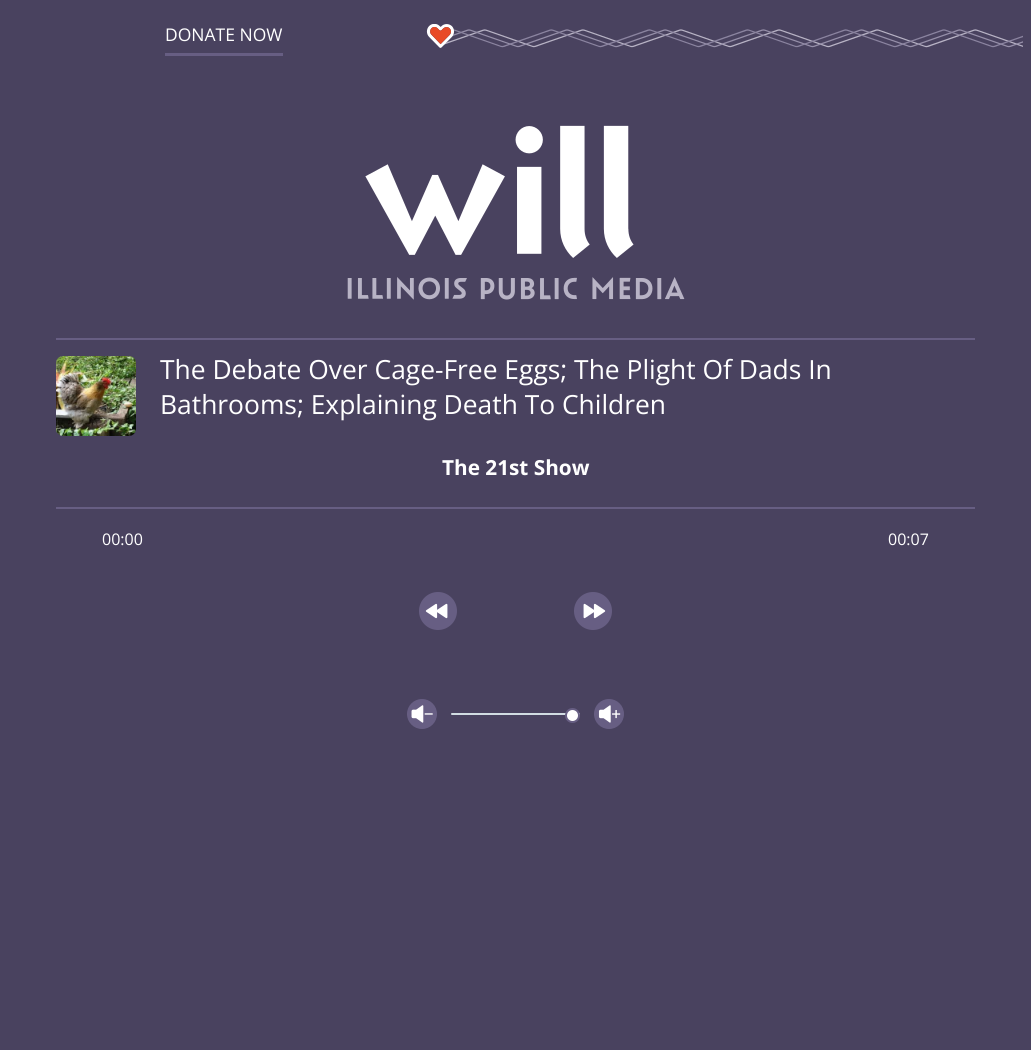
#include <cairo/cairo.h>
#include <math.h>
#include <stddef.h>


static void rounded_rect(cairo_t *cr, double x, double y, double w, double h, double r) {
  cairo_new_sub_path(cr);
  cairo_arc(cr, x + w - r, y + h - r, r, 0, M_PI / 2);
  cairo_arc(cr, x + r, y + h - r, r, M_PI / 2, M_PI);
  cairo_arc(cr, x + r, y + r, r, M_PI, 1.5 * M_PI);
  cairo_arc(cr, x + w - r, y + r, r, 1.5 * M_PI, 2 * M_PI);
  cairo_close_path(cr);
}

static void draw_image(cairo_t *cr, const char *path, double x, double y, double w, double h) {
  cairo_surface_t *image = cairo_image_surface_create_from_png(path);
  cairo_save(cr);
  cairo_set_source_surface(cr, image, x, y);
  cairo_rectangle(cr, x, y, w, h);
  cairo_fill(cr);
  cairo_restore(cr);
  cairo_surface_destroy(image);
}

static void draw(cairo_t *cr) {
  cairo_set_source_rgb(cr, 73 / 255.0, 66 / 255.0, 95 / 255.0);
  cairo_paint(cr);
  cairo_set_source_rgb(cr, 103 / 255.0, 94 / 255.0, 131 / 255.0);
  cairo_rectangle(cr, 165, 53, 118, 3);
  cairo_fill(cr);
  draw_image(cr, "images/1.png", 426, 24, 597, 24);
  draw_image(cr, "images/2.png", 347, 125, 338, 175);
  cairo_rectangle(cr, 56, 338, 919, 2);
  cairo_fill(cr);
  cairo_rectangle(cr, 56, 507, 919, 2);
  cairo_fill(cr);
  draw_image(cr, "images/3.png", 56, 356, 80, 80);
  draw_image(cr, "images/4.png", 419, 592, 38, 38);
  draw_image(cr, "images/5.png", 574, 592, 38, 38);
  draw_image(cr, "images/6.png", 407, 699, 30, 30);
  cairo_set_source_rgb(cr, 210 / 255.0, 221 / 255.0, 227 / 255.0);
  rounded_rect(cr, 451, 713, 129, 2, 1);
  cairo_fill(cr);
  cairo_set_source_rgb(cr, 1, 1, 1);
  cairo_arc(cr, 572.5, 715.5, 6.5, 0, 2 * M_PI);
  cairo_fill_preserve(cr);
  cairo_set_source_rgb(cr, 103 / 255.0, 94 / 255.0, 131 / 255.0);
  cairo_stroke(cr);
  draw_image(cr, "images/7.png", 594, 699, 30, 30);
  cairo_select_font_face(cr, "Open Sans", CAIRO_FONT_SLANT_NORMAL, CAIRO_FONT_WEIGHT_NORMAL);
  cairo_set_font_size(cr, 17.5);
  cairo_set_source_rgb(cr, 1, 1, 1);
  cairo_move_to(cr, 165, 41);
  cairo_show_text(cr, "DONATE NOW");
  cairo_set_font_size(cr, 26.4);
  cairo_move_to(cr, 160, 379);
  cairo_show_text(cr, "The Debate Over Cage-Free Eggs; The Plight Of Dads In");
  cairo_move_to(cr, 160, 414);
  cairo_show_text(cr, "Bathrooms; Explaining Death To Children");
  cairo_select_font_face(cr, "Open Sans", CAIRO_FONT_SLANT_NORMAL, CAIRO_FONT_WEIGHT_BOLD);
  cairo_set_font_size(cr, 20.75);
  cairo_move_to(cr, 442, 475);
  cairo_show_text(cr, "The 21st Show");
  cairo_select_font_face(cr, "Open Sans", CAIRO_FONT_SLANT_NORMAL, CAIRO_FONT_WEIGHT_NORMAL);
  cairo_set_font_size(cr, 16);
  cairo_move_to(cr, 102, 545);
  cairo_show_text(cr, "00:00");
  cairo_move_to(cr, 888, 545);
  cairo_show_text(cr, "00:07");
}

int main(void) {
  cairo_surface_t *surface = cairo_image_surface_create(CAIRO_FORMAT_RGB24, 1031, 1050);
  cairo_t *cr = cairo_create(surface);
  cairo_font_options_t *options = cairo_font_options_create();
  cairo_font_options_set_hint_metrics(options, CAIRO_HINT_METRICS_OFF);
  cairo_font_options_set_hint_style(options, CAIRO_HINT_STYLE_NONE);
  cairo_set_font_options(cr, options);
  cairo_set_miter_limit(cr, 4);
  draw(cr);
  cairo_surface_write_to_png(surface, "out.png");
  cairo_font_options_destroy(options);
  cairo_destroy(cr);
  cairo_surface_destroy(surface);
  return 0;
}
